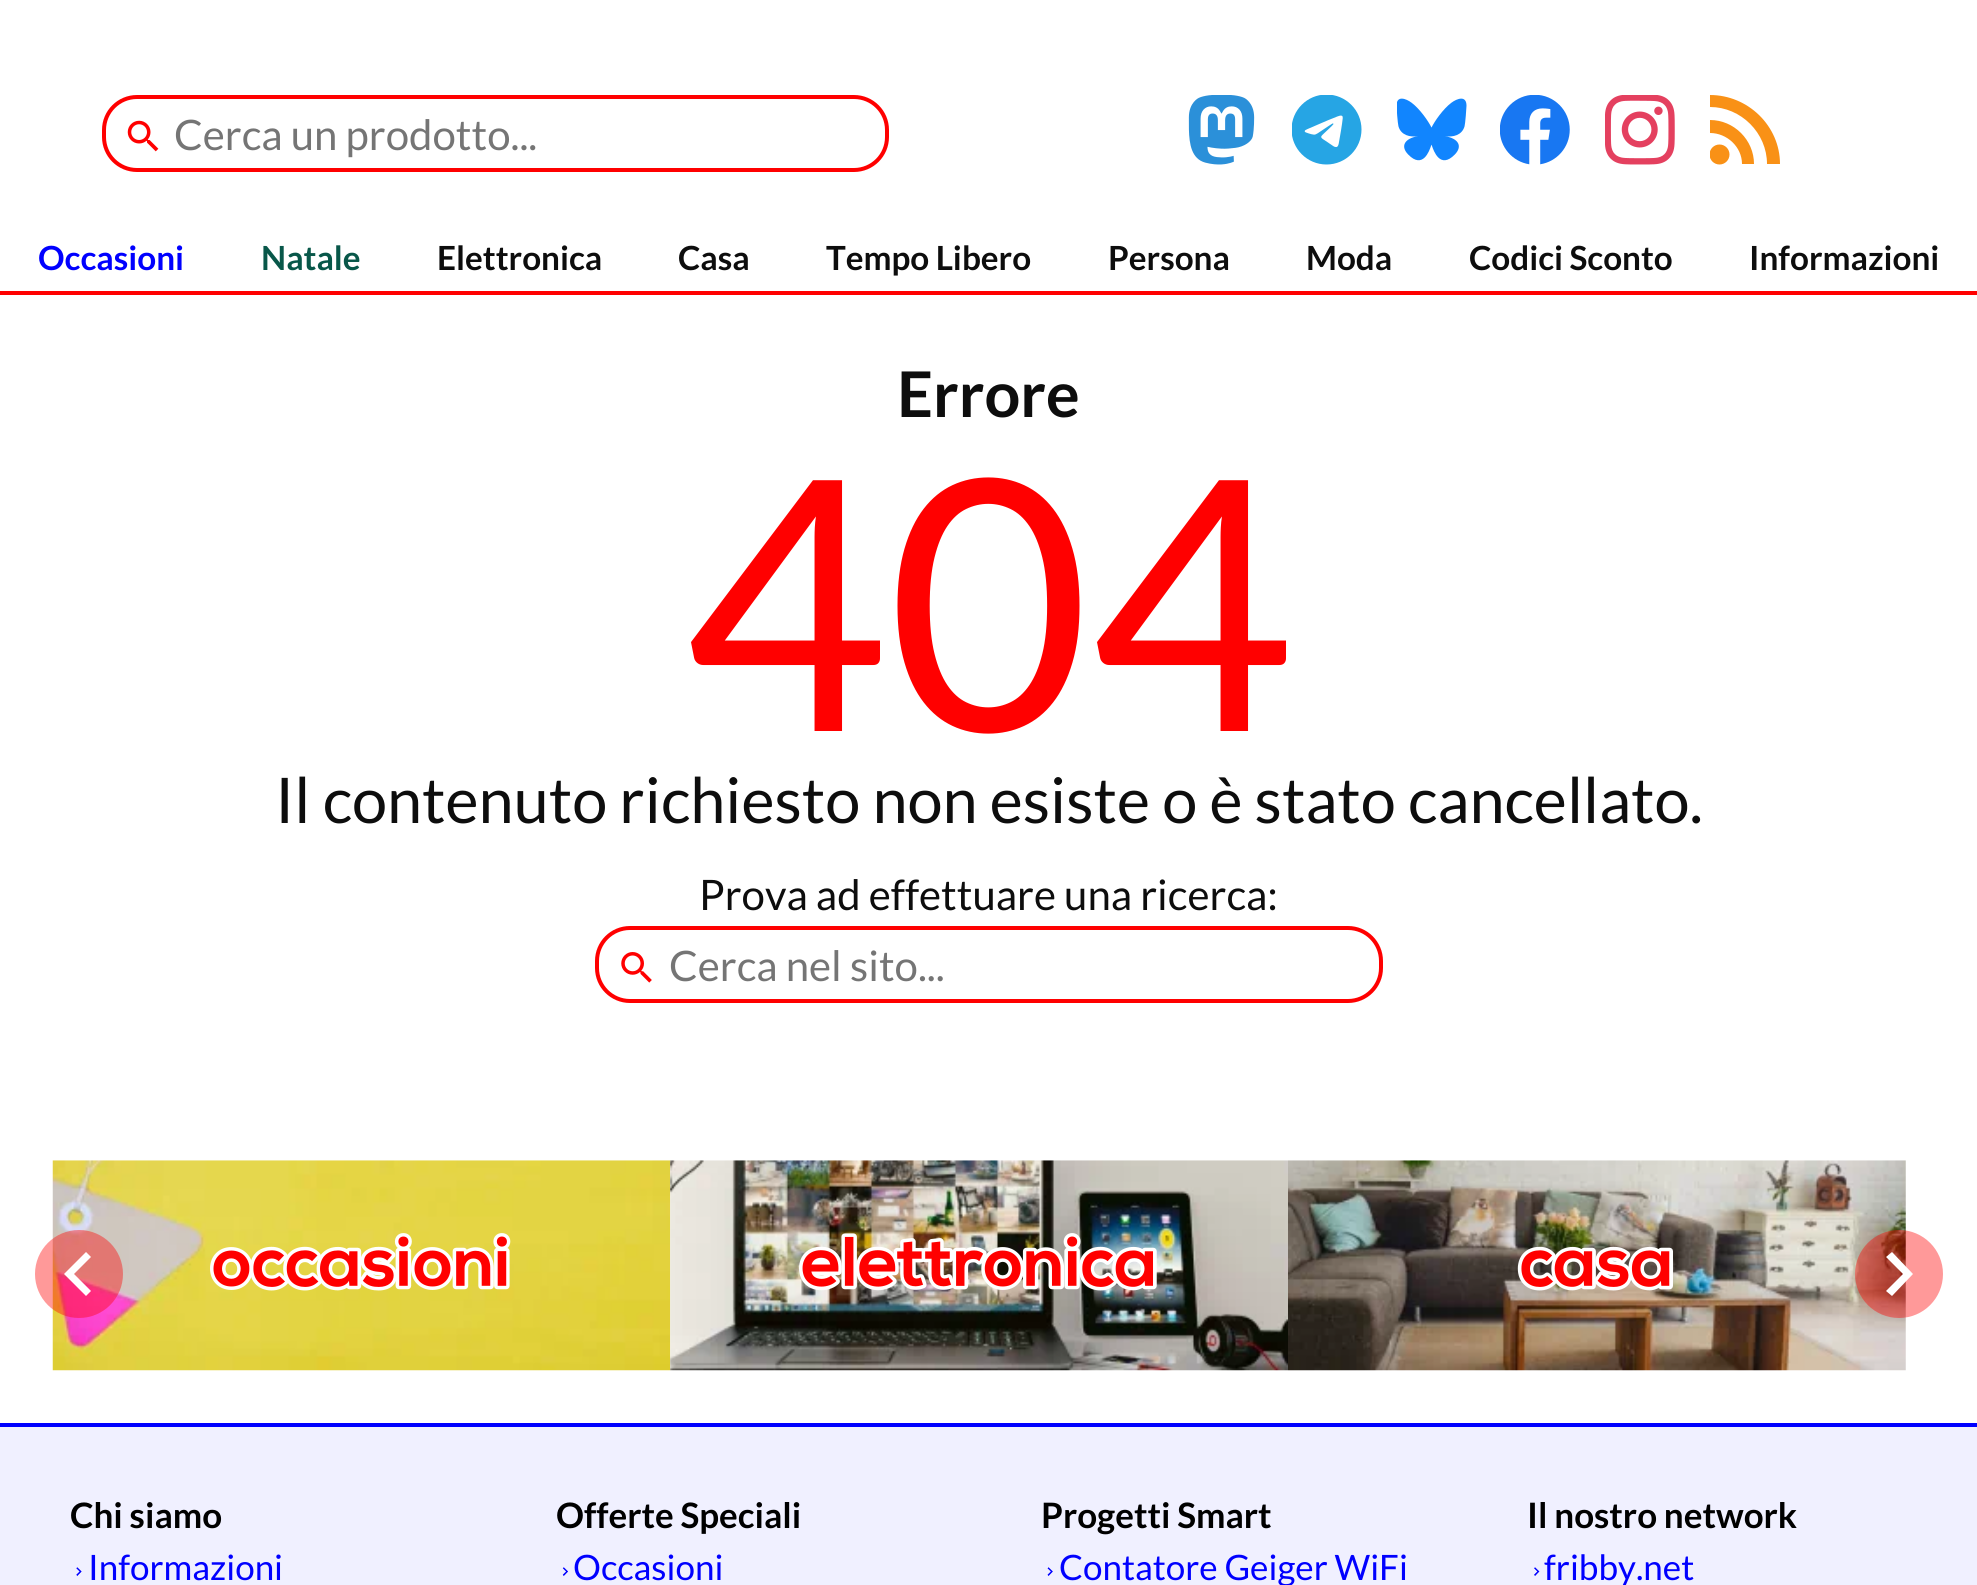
#include <cairo/cairo.h>
#include <math.h>
#include <stddef.h>


static void rounded_rect(cairo_t *cr, double x, double y, double w, double h, double r) {
  cairo_new_sub_path(cr);
  cairo_arc(cr, x + w - r, y + h - r, r, 0, M_PI / 2);
  cairo_arc(cr, x + r, y + h - r, r, M_PI / 2, M_PI);
  cairo_arc(cr, x + r, y + r, r, M_PI, 1.5 * M_PI);
  cairo_arc(cr, x + w - r, y + r, r, 1.5 * M_PI, 2 * M_PI);
  cairo_close_path(cr);
}

static void draw_image(cairo_t *cr, const char *path, double x, double y, double w, double h) {
  cairo_surface_t *image = cairo_image_surface_create_from_png(path);
  cairo_save(cr);
  cairo_set_source_surface(cr, image, x, y);
  cairo_rectangle(cr, x, y, w, h);
  cairo_fill(cr);
  cairo_restore(cr);
  cairo_surface_destroy(image);
}

static void draw(cairo_t *cr) {
  cairo_set_source_rgb(cr, 1, 1, 1);
  cairo_paint(cr);
  draw_image(cr, "images/1.png", 127, 120, 32, 32);
  rounded_rect(cr, 104, 97, 783, 73, 33);
  cairo_set_source_rgb(cr, 1, 0, 0);
  cairo_set_line_width(cr, 4);
  cairo_stroke(cr);
  draw_image(cr, "images/2.png", 1188, 95, 67, 70);
  draw_image(cr, "images/3.png", 1292, 95, 70, 70);
  draw_image(cr, "images/4.png", 1397, 98, 70, 63);
  draw_image(cr, "images/5.png", 1500, 95, 70, 70);
  draw_image(cr, "images/6.png", 1605, 95, 70, 70);
  cairo_save(cr);
  cairo_rectangle(cr, 1710, 95, 70, 70);
  cairo_clip(cr);
  cairo_set_source_rgb(cr, 249 / 255.0, 145 / 255.0, 22 / 255.0);
  cairo_arc(cr, 1719.5, 154.5, 10, 0, 2 * M_PI);
  cairo_fill(cr);
  cairo_restore(cr);
  cairo_set_source_rgb(cr, 249 / 255.0, 145 / 255.0, 22 / 255.0);
  cairo_new_path(cr);
  cairo_move_to(cr, 1710, 95);
  cairo_line_to(cr, 1710, 107);
  cairo_curve_to(cr, 1741, 107, 1767, 133, 1767, 164);
  cairo_line_to(cr, 1780, 164);
  cairo_curve_to(cr, 1780, 126, 1748, 95, 1710, 95);
  cairo_close_path(cr);
  cairo_move_to(cr, 1710, 120);
  cairo_line_to(cr, 1710, 133);
  cairo_curve_to(cr, 1727, 133, 1742, 147, 1742, 164);
  cairo_line_to(cr, 1754, 164);
  cairo_curve_to(cr, 1754, 140, 1734, 120, 1710, 120);
  cairo_close_path(cr);
  cairo_fill(cr);
  cairo_set_source_rgb(cr, 1, 0, 0);
  cairo_rectangle(cr, 0, 291, 1977, 4);
  cairo_fill(cr);
  draw_image(cr, "images/7.png", 621, 952, 31, 31);
  rounded_rect(cr, 597, 928, 784, 73, 33);
  cairo_stroke(cr);
  draw_image(cr, "images/8.png", 52, 1160, 619, 211);
  draw_image(cr, "images/9.png", 210, 1233, 301, 58);
  draw_image(cr, "images/10.png", 670, 1160, 618, 211);
  draw_image(cr, "images/11.png", 799, 1233, 358, 58);
  draw_image(cr, "images/12.png", 1288, 1160, 618, 211);
  draw_image(cr, "images/13.png", 1517, 1246, 156, 45);
  cairo_set_source_rgba(cr, 1, 0, 0, 0.4);
  cairo_arc(cr, 79, 1274, 44, 0, 2 * M_PI);
  cairo_fill(cr);
  cairo_set_source_rgb(cr, 1, 1, 1);
  cairo_new_path(cr);
  cairo_move_to(cr, 91, 1257);
  cairo_line_to(cr, 86, 1252);
  cairo_line_to(cr, 64, 1274);
  cairo_line_to(cr, 86, 1296);
  cairo_line_to(cr, 91, 1291);
  cairo_line_to(cr, 74, 1274);
  cairo_close_path(cr);
  cairo_fill(cr);
  cairo_set_source_rgba(cr, 1, 0, 0, 0.4);
  cairo_arc(cr, 1899, 1274, 44, 0, 2 * M_PI);
  cairo_fill(cr);
  cairo_set_source_rgb(cr, 1, 1, 1);
  cairo_new_path(cr);
  cairo_move_to(cr, 1892, 1252);
  cairo_line_to(cr, 1886, 1257);
  cairo_line_to(cr, 1903, 1274);
  cairo_line_to(cr, 1886, 1291);
  cairo_line_to(cr, 1892, 1296);
  cairo_line_to(cr, 1913, 1274);
  cairo_close_path(cr);
  cairo_fill(cr);
  cairo_set_source_rgb(cr, 240 / 255.0, 240 / 255.0, 1);
  cairo_rectangle(cr, 0, 1427, 1977, 158);
  cairo_fill(cr);
  cairo_set_source_rgb(cr, 0, 0, 1);
  cairo_rectangle(cr, 0, 1423, 1977, 4);
  cairo_fill(cr);
  draw_image(cr, "images/14.png", 76, 1567, 6, 9);
  draw_image(cr, "images/15.png", 562, 1567, 6, 9);
  draw_image(cr, "images/16.png", 1047, 1567, 6, 9);
  draw_image(cr, "images/17.png", 1534, 1567, 6, 9);
  cairo_select_font_face(cr, "Lato", CAIRO_FONT_SLANT_NORMAL, CAIRO_FONT_WEIGHT_NORMAL);
  cairo_set_font_size(cr, 42);
  cairo_set_source_rgb(cr, 117 / 255.0, 117 / 255.0, 117 / 255.0);
  cairo_move_to(cr, 174, 150);
  cairo_show_text(cr, "Cerca un prodotto...");
  cairo_select_font_face(cr, "Lato", CAIRO_FONT_SLANT_NORMAL, CAIRO_FONT_WEIGHT_BOLD);
  cairo_set_font_size(cr, 33.25);
  cairo_set_source_rgb(cr, 0, 0, 1);
  cairo_move_to(cr, 38, 270);
  cairo_show_text(cr, "Occasioni");
  cairo_set_source_rgb(cr, 8 / 255.0, 87 / 255.0, 73 / 255.0);
  cairo_move_to(cr, 261, 270);
  cairo_show_text(cr, "Natale");
  cairo_set_source_rgb(cr, 13 / 255.0, 13 / 255.0, 13 / 255.0);
  cairo_move_to(cr, 437, 270);
  cairo_show_text(cr, "Elettronica");
  cairo_move_to(cr, 678, 270);
  cairo_show_text(cr, "Casa");
  cairo_move_to(cr, 826, 270);
  cairo_show_text(cr, "Tempo Libero");
  cairo_move_to(cr, 1108, 270);
  cairo_show_text(cr, "Persona");
  cairo_move_to(cr, 1306, 270);
  cairo_show_text(cr, "Moda");
  cairo_move_to(cr, 1469, 270);
  cairo_show_text(cr, "Codici Sconto");
  cairo_move_to(cr, 1749, 270);
  cairo_show_text(cr, "Informazioni");
  cairo_set_font_size(cr, 63);
  cairo_move_to(cr, 897, 417);
  cairo_show_text(cr, "Errore");
  cairo_select_font_face(cr, "Lato", CAIRO_FONT_SLANT_NORMAL, CAIRO_FONT_WEIGHT_NORMAL);
  cairo_set_font_size(cr, 350);
  cairo_set_source_rgb(cr, 1, 0, 0);
  cairo_move_to(cr, 684, 731);
  cairo_show_text(cr, "404");
  cairo_set_font_size(cr, 63);
  cairo_set_source_rgb(cr, 13 / 255.0, 13 / 255.0, 13 / 255.0);
  cairo_move_to(cr, 275, 823);
  cairo_show_text(cr, "Il contenuto richiesto non esiste o è stato cancellato.");
  cairo_set_font_size(cr, 42);
  cairo_move_to(cr, 699, 910);
  cairo_show_text(cr, "Prova ad effettuare una ricerca:");
  cairo_set_source_rgb(cr, 117 / 255.0, 117 / 255.0, 117 / 255.0);
  cairo_move_to(cr, 669, 981);
  cairo_show_text(cr, "Cerca nel sito...");
  cairo_select_font_face(cr, "Lato", CAIRO_FONT_SLANT_NORMAL, CAIRO_FONT_WEIGHT_BOLD);
  cairo_set_font_size(cr, 35);
  cairo_set_source_rgb(cr, 0, 0, 0);
  cairo_move_to(cr, 70, 1528);
  cairo_show_text(cr, "Chi siamo");
  cairo_select_font_face(cr, "Lato", CAIRO_FONT_SLANT_NORMAL, CAIRO_FONT_WEIGHT_NORMAL);
  cairo_set_source_rgb(cr, 0, 0, 1);
  cairo_move_to(cr, 88, 1580);
  cairo_show_text(cr, "Informazioni");
  cairo_select_font_face(cr, "Lato", CAIRO_FONT_SLANT_NORMAL, CAIRO_FONT_WEIGHT_BOLD);
  cairo_set_source_rgb(cr, 0, 0, 0);
  cairo_move_to(cr, 556, 1528);
  cairo_show_text(cr, "Offerte Speciali");
  cairo_select_font_face(cr, "Lato", CAIRO_FONT_SLANT_NORMAL, CAIRO_FONT_WEIGHT_NORMAL);
  cairo_set_source_rgb(cr, 0, 0, 1);
  cairo_move_to(cr, 573, 1580);
  cairo_show_text(cr, "Occasioni");
  cairo_select_font_face(cr, "Lato", CAIRO_FONT_SLANT_NORMAL, CAIRO_FONT_WEIGHT_BOLD);
  cairo_set_source_rgb(cr, 0, 0, 0);
  cairo_move_to(cr, 1041, 1528);
  cairo_show_text(cr, "Progetti Smart");
  cairo_select_font_face(cr, "Lato", CAIRO_FONT_SLANT_NORMAL, CAIRO_FONT_WEIGHT_NORMAL);
  cairo_set_source_rgb(cr, 0, 0, 1);
  cairo_move_to(cr, 1059, 1580);
  cairo_show_text(cr, "Contatore Geiger WiFi");
  cairo_select_font_face(cr, "Lato", CAIRO_FONT_SLANT_NORMAL, CAIRO_FONT_WEIGHT_BOLD);
  cairo_set_source_rgb(cr, 0, 0, 0);
  cairo_move_to(cr, 1527, 1528);
  cairo_show_text(cr, "Il nostro network");
  cairo_select_font_face(cr, "Lato", CAIRO_FONT_SLANT_NORMAL, CAIRO_FONT_WEIGHT_NORMAL);
  cairo_set_source_rgb(cr, 0, 0, 1);
  cairo_move_to(cr, 1544, 1580);
  cairo_show_text(cr, "fribby.net");
}

int main(void) {
  cairo_surface_t *surface = cairo_image_surface_create(CAIRO_FORMAT_RGB24, 1977, 1585);
  cairo_t *cr = cairo_create(surface);
  cairo_font_options_t *options = cairo_font_options_create();
  cairo_font_options_set_hint_metrics(options, CAIRO_HINT_METRICS_OFF);
  cairo_font_options_set_hint_style(options, CAIRO_HINT_STYLE_NONE);
  cairo_set_font_options(cr, options);
  cairo_set_miter_limit(cr, 4);
  draw(cr);
  cairo_surface_write_to_png(surface, "out.png");
  cairo_font_options_destroy(options);
  cairo_destroy(cr);
  cairo_surface_destroy(surface);
  return 0;
}
